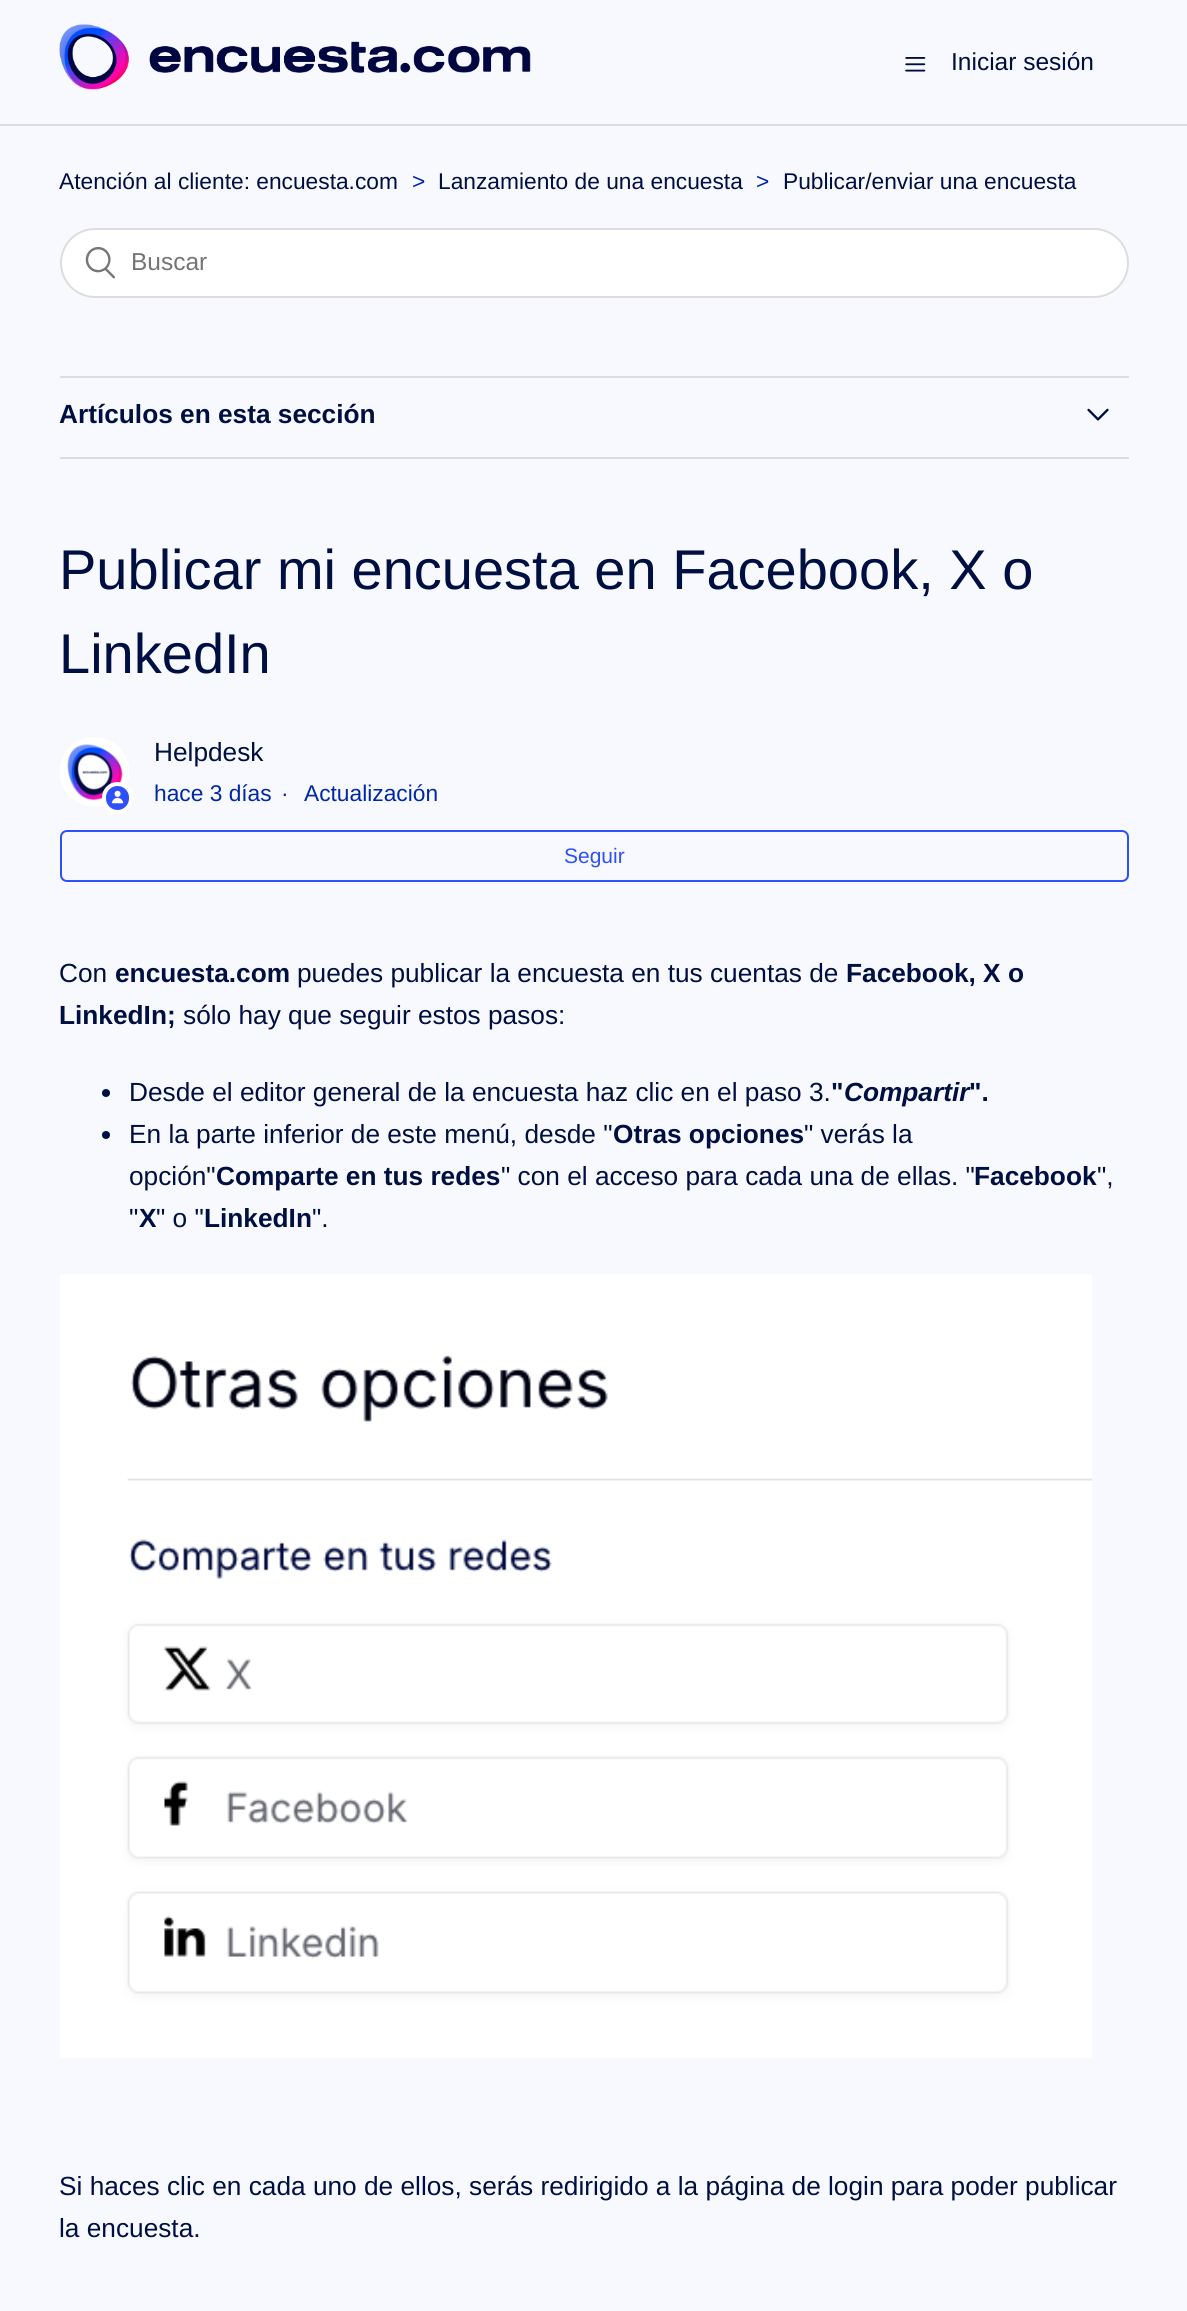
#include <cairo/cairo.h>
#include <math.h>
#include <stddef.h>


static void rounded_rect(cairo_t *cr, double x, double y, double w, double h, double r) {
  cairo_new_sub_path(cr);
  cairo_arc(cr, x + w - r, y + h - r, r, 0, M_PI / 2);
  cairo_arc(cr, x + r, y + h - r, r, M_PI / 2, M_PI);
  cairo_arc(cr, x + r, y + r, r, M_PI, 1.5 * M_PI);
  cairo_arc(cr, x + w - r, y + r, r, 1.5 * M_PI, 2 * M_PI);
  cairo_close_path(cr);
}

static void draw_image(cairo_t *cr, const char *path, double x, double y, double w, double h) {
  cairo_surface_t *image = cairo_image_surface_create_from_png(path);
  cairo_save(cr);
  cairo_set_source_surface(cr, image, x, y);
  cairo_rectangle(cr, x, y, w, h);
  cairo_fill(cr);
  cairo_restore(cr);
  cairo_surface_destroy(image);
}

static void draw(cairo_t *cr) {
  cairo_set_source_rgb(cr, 248 / 255.0, 249 / 255.0, 1);
  cairo_paint(cr);
  draw_image(cr, "images/1.png", 59, 24, 472, 66);
  draw_image(cr, "images/2.png", 905, 57, 21, 15);
  cairo_set_source_rgb(cr, 221 / 255.0, 221 / 255.0, 221 / 255.0);
  cairo_rectangle(cr, 0, 124, 1187, 2);
  cairo_fill(cr);
  cairo_set_source_rgb(cr, 1, 1, 1);
  rounded_rect(cr, 61, 229, 1067, 68, 34);
  cairo_fill_preserve(cr);
  cairo_set_source_rgb(cr, 221 / 255.0, 221 / 255.0, 221 / 255.0);
  cairo_stroke(cr);
  draw_image(cr, "images/3.png", 85, 247, 31, 32);
  cairo_rectangle(cr, 60, 376, 1069, 2);
  cairo_fill(cr);
  cairo_rectangle(cr, 60, 457, 1069, 2);
  cairo_fill(cr);
  draw_image(cr, "images/4.png", 1087, 408, 22, 13);
  draw_image(cr, "images/5.png", 60, 737, 69, 69);
  cairo_set_source_rgb(cr, 45 / 255.0, 80 / 255.0, 250 / 255.0);
  rounded_rect(cr, 104, 784, 27, 28, 13.5);
  cairo_fill_preserve(cr);
  cairo_set_source_rgb(cr, 1, 1, 1);
  cairo_set_line_width(cr, 4);
  cairo_stroke(cr);
  draw_image(cr, "images/6.png", 111, 790, 13, 14);
  rounded_rect(cr, 61, 831, 1067, 50, 6);
  cairo_set_source_rgb(cr, 45 / 255.0, 80 / 255.0, 250 / 255.0);
  cairo_set_line_width(cr, 2);
  cairo_stroke(cr);
  cairo_set_source_rgb(cr, 0, 15 / 255.0, 65 / 255.0);
  cairo_arc(cr, 106, 1093, 4, 0, 2 * M_PI);
  cairo_fill(cr);
  cairo_arc(cr, 106, 1135, 4, 0, 2 * M_PI);
  cairo_fill(cr);
  draw_image(cr, "images/7.png", 60, 1274, 1032, 784);
  cairo_select_font_face(cr, "Liberation Sans", CAIRO_FONT_SLANT_NORMAL, CAIRO_FONT_WEIGHT_NORMAL);
  cairo_set_font_size(cr, 24.5);
  cairo_move_to(cr, 951, 70);
  cairo_show_text(cr, "Iniciar sesión");
  cairo_set_font_size(cr, 22.75);
  cairo_move_to(cr, 59, 189);
  cairo_show_text(cr, "Atención al cliente: encuesta.com");
  cairo_set_source_rgb(cr, 0, 39 / 255.0, 167 / 255.0);
  cairo_move_to(cr, 412, 189);
  cairo_show_text(cr, ">");
  cairo_set_source_rgb(cr, 0, 15 / 255.0, 65 / 255.0);
  cairo_move_to(cr, 438, 189);
  cairo_show_text(cr, "Lanzamiento de una encuesta");
  cairo_set_source_rgb(cr, 0, 39 / 255.0, 167 / 255.0);
  cairo_move_to(cr, 756, 189);
  cairo_show_text(cr, ">");
  cairo_set_source_rgb(cr, 0, 15 / 255.0, 65 / 255.0);
  cairo_move_to(cr, 783, 189);
  cairo_show_text(cr, "Publicar/enviar una encuesta");
  cairo_set_font_size(cr, 24.5);
  cairo_set_source_rgb(cr, 117 / 255.0, 117 / 255.0, 117 / 255.0);
  cairo_move_to(cr, 131, 270);
  cairo_show_text(cr, "Buscar");
  cairo_select_font_face(cr, "Liberation Sans", CAIRO_FONT_SLANT_NORMAL, CAIRO_FONT_WEIGHT_BOLD);
  cairo_set_font_size(cr, 26.25);
  cairo_set_source_rgb(cr, 0, 15 / 255.0, 65 / 255.0);
  cairo_move_to(cr, 59, 423);
  cairo_show_text(cr, "Artículos en esta sección");
  cairo_select_font_face(cr, "Liberation Sans", CAIRO_FONT_SLANT_NORMAL, CAIRO_FONT_WEIGHT_NORMAL);
  cairo_set_font_size(cr, 56);
  cairo_move_to(cr, 59, 589);
  cairo_show_text(cr, "Publicar mi encuesta en Facebook, X o");
  cairo_move_to(cr, 59, 673);
  cairo_show_text(cr, "LinkedIn");
  cairo_set_font_size(cr, 26.25);
  cairo_move_to(cr, 154, 761);
  cairo_show_text(cr, "Helpdesk");
  cairo_set_font_size(cr, 22.75);
  cairo_set_source_rgb(cr, 0, 39 / 255.0, 167 / 255.0);
  cairo_move_to(cr, 154, 801);
  cairo_show_text(cr, "hace 3 días");
  cairo_move_to(cr, 281, 801);
  cairo_show_text(cr, "·");
  cairo_move_to(cr, 304, 801);
  cairo_show_text(cr, "Actualización");
  cairo_set_font_size(cr, 21);
  cairo_set_source_rgb(cr, 45 / 255.0, 80 / 255.0, 250 / 255.0);
  cairo_move_to(cr, 564, 863);
  cairo_show_text(cr, "Seguir");
  cairo_set_font_size(cr, 26.25);
  cairo_set_source_rgb(cr, 0, 15 / 255.0, 65 / 255.0);
  cairo_move_to(cr, 59, 982);
  cairo_show_text(cr, "Con");
  cairo_select_font_face(cr, "Liberation Sans", CAIRO_FONT_SLANT_NORMAL, CAIRO_FONT_WEIGHT_BOLD);
  cairo_move_to(cr, 115, 982);
  cairo_show_text(cr, "encuesta.com");
  cairo_select_font_face(cr, "Liberation Sans", CAIRO_FONT_SLANT_NORMAL, CAIRO_FONT_WEIGHT_NORMAL);
  cairo_move_to(cr, 297, 982);
  cairo_show_text(cr, "puedes publicar la encuesta en tus cuentas de");
  cairo_select_font_face(cr, "Liberation Sans", CAIRO_FONT_SLANT_NORMAL, CAIRO_FONT_WEIGHT_BOLD);
  cairo_move_to(cr, 846, 982);
  cairo_show_text(cr, "Facebook, X o");
  cairo_move_to(cr, 59, 1024);
  cairo_show_text(cr, "LinkedIn;");
  cairo_select_font_face(cr, "Liberation Sans", CAIRO_FONT_SLANT_NORMAL, CAIRO_FONT_WEIGHT_NORMAL);
  cairo_move_to(cr, 183, 1024);
  cairo_show_text(cr, "sólo hay que seguir estos pasos:");
  cairo_move_to(cr, 129, 1101);
  cairo_show_text(cr, "Desde el editor general de la encuesta haz clic en el paso 3.");
  cairo_select_font_face(cr, "Liberation Sans", CAIRO_FONT_SLANT_NORMAL, CAIRO_FONT_WEIGHT_BOLD);
  cairo_move_to(cr, 831, 1101);
  cairo_show_text(cr, "\"");
  cairo_select_font_face(cr, "Liberation Sans", CAIRO_FONT_SLANT_ITALIC, CAIRO_FONT_WEIGHT_BOLD);
  cairo_move_to(cr, 844, 1101);
  cairo_show_text(cr, "Compartir");
  cairo_select_font_face(cr, "Liberation Sans", CAIRO_FONT_SLANT_NORMAL, CAIRO_FONT_WEIGHT_BOLD);
  cairo_move_to(cr, 969, 1101);
  cairo_show_text(cr, "\".");
  cairo_select_font_face(cr, "Liberation Sans", CAIRO_FONT_SLANT_NORMAL, CAIRO_FONT_WEIGHT_NORMAL);
  cairo_move_to(cr, 129, 1143);
  cairo_show_text(cr, "En la parte inferior de este menú, desde \"");
  cairo_select_font_face(cr, "Liberation Sans", CAIRO_FONT_SLANT_NORMAL, CAIRO_FONT_WEIGHT_BOLD);
  cairo_move_to(cr, 613, 1143);
  cairo_show_text(cr, "Otras opciones");
  cairo_select_font_face(cr, "Liberation Sans", CAIRO_FONT_SLANT_NORMAL, CAIRO_FONT_WEIGHT_NORMAL);
  cairo_move_to(cr, 804, 1143);
  cairo_show_text(cr, "\" verás la");
  cairo_move_to(cr, 129, 1185);
  cairo_show_text(cr, "opción\"");
  cairo_select_font_face(cr, "Liberation Sans", CAIRO_FONT_SLANT_NORMAL, CAIRO_FONT_WEIGHT_BOLD);
  cairo_move_to(cr, 216, 1185);
  cairo_show_text(cr, "Comparte en tus redes");
  cairo_select_font_face(cr, "Liberation Sans", CAIRO_FONT_SLANT_NORMAL, CAIRO_FONT_WEIGHT_NORMAL);
  cairo_move_to(cr, 501, 1185);
  cairo_show_text(cr, "\" con el acceso para cada una de ellas. \"");
  cairo_select_font_face(cr, "Liberation Sans", CAIRO_FONT_SLANT_NORMAL, CAIRO_FONT_WEIGHT_BOLD);
  cairo_move_to(cr, 974, 1185);
  cairo_show_text(cr, "Facebook");
  cairo_select_font_face(cr, "Liberation Sans", CAIRO_FONT_SLANT_NORMAL, CAIRO_FONT_WEIGHT_NORMAL);
  cairo_move_to(cr, 1097, 1185);
  cairo_show_text(cr, "\",");
  cairo_move_to(cr, 129, 1227);
  cairo_show_text(cr, "\"");
  cairo_select_font_face(cr, "Liberation Sans", CAIRO_FONT_SLANT_NORMAL, CAIRO_FONT_WEIGHT_BOLD);
  cairo_move_to(cr, 139, 1227);
  cairo_show_text(cr, "X");
  cairo_select_font_face(cr, "Liberation Sans", CAIRO_FONT_SLANT_NORMAL, CAIRO_FONT_WEIGHT_NORMAL);
  cairo_move_to(cr, 156, 1227);
  cairo_show_text(cr, "\" o \"");
  cairo_select_font_face(cr, "Liberation Sans", CAIRO_FONT_SLANT_NORMAL, CAIRO_FONT_WEIGHT_BOLD);
  cairo_move_to(cr, 204, 1227);
  cairo_show_text(cr, "LinkedIn");
  cairo_select_font_face(cr, "Liberation Sans", CAIRO_FONT_SLANT_NORMAL, CAIRO_FONT_WEIGHT_NORMAL);
  cairo_move_to(cr, 312, 1227);
  cairo_show_text(cr, "\".");
  cairo_move_to(cr, 59, 2195);
  cairo_show_text(cr, "Si haces clic en cada uno de ellos, serás redirigido a la página de login para poder publicar");
  cairo_move_to(cr, 59, 2237);
  cairo_show_text(cr, "la encuesta.");
}

int main(void) {
  cairo_surface_t *surface = cairo_image_surface_create(CAIRO_FORMAT_RGB24, 1187, 2311);
  cairo_t *cr = cairo_create(surface);
  cairo_font_options_t *options = cairo_font_options_create();
  cairo_font_options_set_hint_metrics(options, CAIRO_HINT_METRICS_OFF);
  cairo_font_options_set_hint_style(options, CAIRO_HINT_STYLE_NONE);
  cairo_set_font_options(cr, options);
  cairo_set_miter_limit(cr, 4);
  draw(cr);
  cairo_surface_write_to_png(surface, "out.png");
  cairo_font_options_destroy(options);
  cairo_destroy(cr);
  cairo_surface_destroy(surface);
  return 0;
}
